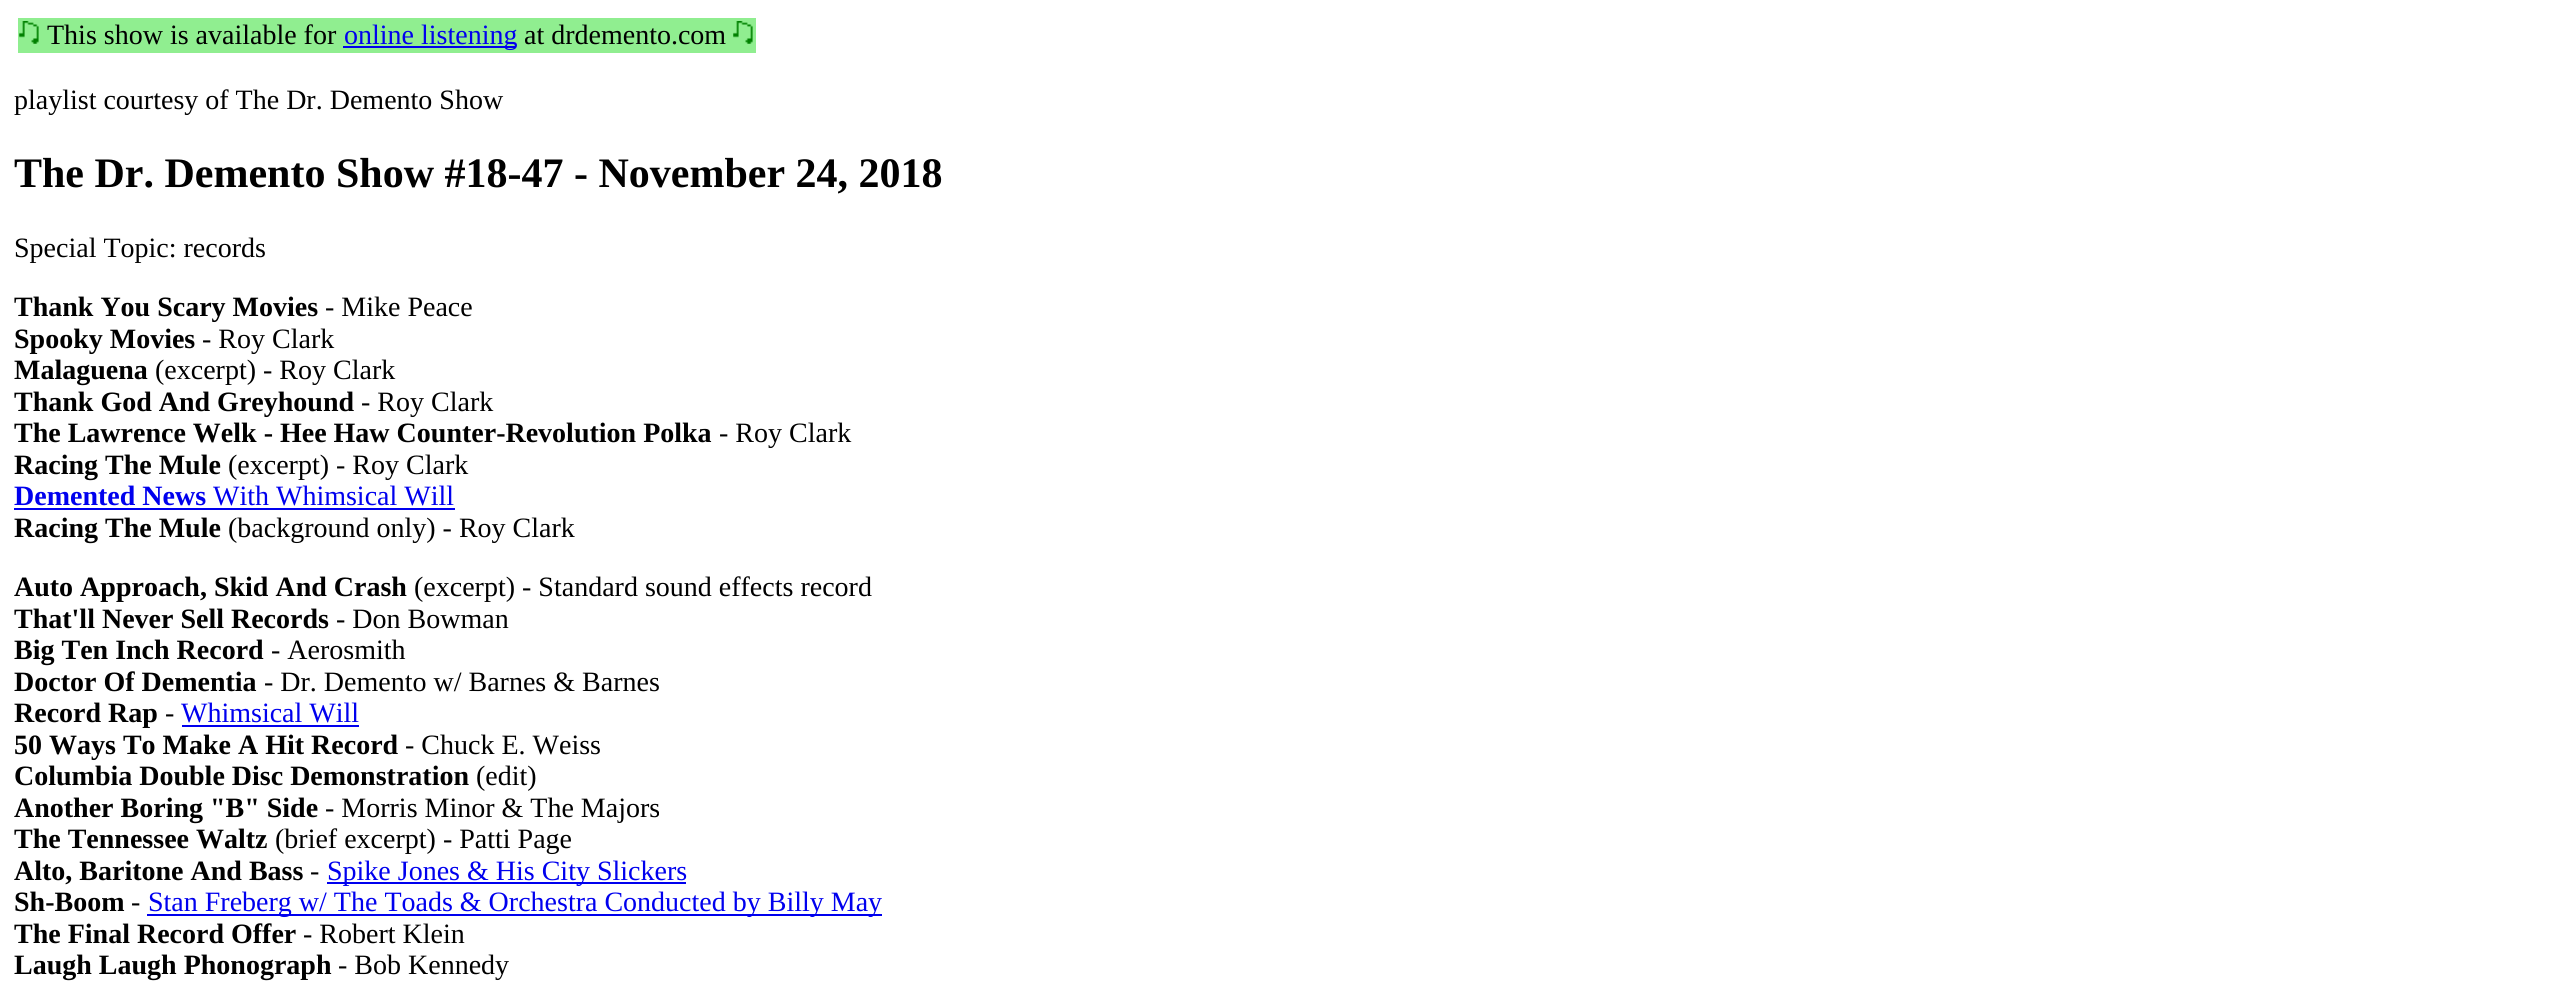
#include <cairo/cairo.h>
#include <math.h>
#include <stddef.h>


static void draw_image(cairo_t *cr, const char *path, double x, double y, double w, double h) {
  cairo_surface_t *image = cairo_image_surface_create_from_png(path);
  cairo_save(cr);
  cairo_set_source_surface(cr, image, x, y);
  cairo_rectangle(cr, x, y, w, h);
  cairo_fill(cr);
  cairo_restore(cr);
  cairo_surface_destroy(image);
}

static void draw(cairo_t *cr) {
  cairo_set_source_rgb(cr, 1, 1, 1);
  cairo_paint(cr);
  cairo_set_source_rgb(cr, 144 / 255.0, 238 / 255.0, 144 / 255.0);
  cairo_rectangle(cr, 18, 18, 738, 35);
  cairo_fill(cr);
  draw_image(cr, "images/1.png", 19, 21, 20, 23);
  cairo_set_source_rgb(cr, 0, 0, 238 / 255.0);
  cairo_rectangle(cr, 343, 46, 173, 2);
  cairo_fill(cr);
  draw_image(cr, "images/1.png", 733, 21, 20, 23);
  cairo_rectangle(cr, 14, 508, 441, 2);
  cairo_fill(cr);
  cairo_rectangle(cr, 182, 725, 177, 2);
  cairo_fill(cr);
  cairo_rectangle(cr, 327, 882, 359, 2);
  cairo_fill(cr);
  cairo_rectangle(cr, 147, 914, 735, 2);
  cairo_fill(cr);
  cairo_select_font_face(cr, "Liberation Serif", CAIRO_FONT_SLANT_NORMAL, CAIRO_FONT_WEIGHT_NORMAL);
  cairo_set_font_size(cr, 28);
  cairo_set_source_rgb(cr, 0, 0, 0);
  cairo_move_to(cr, 47, 44);
  cairo_show_text(cr, "This show is available for");
  cairo_set_source_rgb(cr, 0, 0, 238 / 255.0);
  cairo_move_to(cr, 344, 44);
  cairo_show_text(cr, "online listening");
  cairo_set_source_rgb(cr, 0, 0, 0);
  cairo_move_to(cr, 524, 44);
  cairo_show_text(cr, "at drdemento.com");
  cairo_move_to(cr, 14, 109);
  cairo_show_text(cr, "playlist courtesy of The Dr. Demento Show");
  cairo_select_font_face(cr, "Liberation Serif", CAIRO_FONT_SLANT_NORMAL, CAIRO_FONT_WEIGHT_BOLD);
  cairo_set_font_size(cr, 42);
  cairo_move_to(cr, 14, 187);
  cairo_show_text(cr, "The Dr. Demento Show #18-47 - November 24, 2018");
  cairo_select_font_face(cr, "Liberation Serif", CAIRO_FONT_SLANT_NORMAL, CAIRO_FONT_WEIGHT_NORMAL);
  cairo_set_font_size(cr, 28);
  cairo_move_to(cr, 14, 257);
  cairo_show_text(cr, "Special Topic: records");
  cairo_select_font_face(cr, "Liberation Serif", CAIRO_FONT_SLANT_NORMAL, CAIRO_FONT_WEIGHT_BOLD);
  cairo_move_to(cr, 14, 316);
  cairo_show_text(cr, "Thank You Scary Movies");
  cairo_select_font_face(cr, "Liberation Serif", CAIRO_FONT_SLANT_NORMAL, CAIRO_FONT_WEIGHT_NORMAL);
  cairo_move_to(cr, 325, 316);
  cairo_show_text(cr, "- Mike Peace");
  cairo_select_font_face(cr, "Liberation Serif", CAIRO_FONT_SLANT_NORMAL, CAIRO_FONT_WEIGHT_BOLD);
  cairo_move_to(cr, 14, 348);
  cairo_show_text(cr, "Spooky Movies");
  cairo_select_font_face(cr, "Liberation Serif", CAIRO_FONT_SLANT_NORMAL, CAIRO_FONT_WEIGHT_NORMAL);
  cairo_move_to(cr, 202, 348);
  cairo_show_text(cr, "- Roy Clark");
  cairo_select_font_face(cr, "Liberation Serif", CAIRO_FONT_SLANT_NORMAL, CAIRO_FONT_WEIGHT_BOLD);
  cairo_move_to(cr, 14, 379);
  cairo_show_text(cr, "Malaguena");
  cairo_select_font_face(cr, "Liberation Serif", CAIRO_FONT_SLANT_NORMAL, CAIRO_FONT_WEIGHT_NORMAL);
  cairo_move_to(cr, 155, 379);
  cairo_show_text(cr, "(excerpt) - Roy Clark");
  cairo_select_font_face(cr, "Liberation Serif", CAIRO_FONT_SLANT_NORMAL, CAIRO_FONT_WEIGHT_BOLD);
  cairo_move_to(cr, 14, 411);
  cairo_show_text(cr, "Thank God And Greyhound");
  cairo_select_font_face(cr, "Liberation Serif", CAIRO_FONT_SLANT_NORMAL, CAIRO_FONT_WEIGHT_NORMAL);
  cairo_move_to(cr, 361, 411);
  cairo_show_text(cr, "- Roy Clark");
  cairo_select_font_face(cr, "Liberation Serif", CAIRO_FONT_SLANT_NORMAL, CAIRO_FONT_WEIGHT_BOLD);
  cairo_move_to(cr, 14, 442);
  cairo_show_text(cr, "The Lawrence Welk - Hee Haw Counter-Revolution Polka");
  cairo_select_font_face(cr, "Liberation Serif", CAIRO_FONT_SLANT_NORMAL, CAIRO_FONT_WEIGHT_NORMAL);
  cairo_move_to(cr, 719, 442);
  cairo_show_text(cr, "- Roy Clark");
  cairo_select_font_face(cr, "Liberation Serif", CAIRO_FONT_SLANT_NORMAL, CAIRO_FONT_WEIGHT_BOLD);
  cairo_move_to(cr, 14, 474);
  cairo_show_text(cr, "Racing The Mule");
  cairo_select_font_face(cr, "Liberation Serif", CAIRO_FONT_SLANT_NORMAL, CAIRO_FONT_WEIGHT_NORMAL);
  cairo_move_to(cr, 228, 474);
  cairo_show_text(cr, "(excerpt) - Roy Clark");
  cairo_select_font_face(cr, "Liberation Serif", CAIRO_FONT_SLANT_NORMAL, CAIRO_FONT_WEIGHT_BOLD);
  cairo_set_source_rgb(cr, 0, 0, 238 / 255.0);
  cairo_move_to(cr, 14, 505);
  cairo_show_text(cr, "Demented News");
  cairo_select_font_face(cr, "Liberation Serif", CAIRO_FONT_SLANT_NORMAL, CAIRO_FONT_WEIGHT_NORMAL);
  cairo_move_to(cr, 213, 505);
  cairo_show_text(cr, "With Whimsical Will");
  cairo_select_font_face(cr, "Liberation Serif", CAIRO_FONT_SLANT_NORMAL, CAIRO_FONT_WEIGHT_BOLD);
  cairo_set_source_rgb(cr, 0, 0, 0);
  cairo_move_to(cr, 14, 537);
  cairo_show_text(cr, "Racing The Mule");
  cairo_select_font_face(cr, "Liberation Serif", CAIRO_FONT_SLANT_NORMAL, CAIRO_FONT_WEIGHT_NORMAL);
  cairo_move_to(cr, 228, 537);
  cairo_show_text(cr, "(background only) - Roy Clark");
  cairo_select_font_face(cr, "Liberation Serif", CAIRO_FONT_SLANT_NORMAL, CAIRO_FONT_WEIGHT_BOLD);
  cairo_move_to(cr, 14, 596);
  cairo_show_text(cr, "Auto Approach, Skid And Crash");
  cairo_select_font_face(cr, "Liberation Serif", CAIRO_FONT_SLANT_NORMAL, CAIRO_FONT_WEIGHT_NORMAL);
  cairo_move_to(cr, 414, 596);
  cairo_show_text(cr, "(excerpt) - Standard sound effects record");
  cairo_select_font_face(cr, "Liberation Serif", CAIRO_FONT_SLANT_NORMAL, CAIRO_FONT_WEIGHT_BOLD);
  cairo_move_to(cr, 14, 628);
  cairo_show_text(cr, "That'll Never Sell Records");
  cairo_select_font_face(cr, "Liberation Serif", CAIRO_FONT_SLANT_NORMAL, CAIRO_FONT_WEIGHT_NORMAL);
  cairo_move_to(cr, 336, 628);
  cairo_show_text(cr, "- Don Bowman");
  cairo_select_font_face(cr, "Liberation Serif", CAIRO_FONT_SLANT_NORMAL, CAIRO_FONT_WEIGHT_BOLD);
  cairo_move_to(cr, 14, 659);
  cairo_show_text(cr, "Big Ten Inch Record");
  cairo_select_font_face(cr, "Liberation Serif", CAIRO_FONT_SLANT_NORMAL, CAIRO_FONT_WEIGHT_NORMAL);
  cairo_move_to(cr, 271, 659);
  cairo_show_text(cr, "- Aerosmith");
  cairo_select_font_face(cr, "Liberation Serif", CAIRO_FONT_SLANT_NORMAL, CAIRO_FONT_WEIGHT_BOLD);
  cairo_move_to(cr, 14, 691);
  cairo_show_text(cr, "Doctor Of Dementia");
  cairo_select_font_face(cr, "Liberation Serif", CAIRO_FONT_SLANT_NORMAL, CAIRO_FONT_WEIGHT_NORMAL);
  cairo_move_to(cr, 264, 691);
  cairo_show_text(cr, "- Dr. Demento w/ Barnes & Barnes");
  cairo_select_font_face(cr, "Liberation Serif", CAIRO_FONT_SLANT_NORMAL, CAIRO_FONT_WEIGHT_BOLD);
  cairo_move_to(cr, 14, 722);
  cairo_show_text(cr, "Record Rap");
  cairo_select_font_face(cr, "Liberation Serif", CAIRO_FONT_SLANT_NORMAL, CAIRO_FONT_WEIGHT_NORMAL);
  cairo_move_to(cr, 165, 722);
  cairo_show_text(cr, "-");
  cairo_set_source_rgb(cr, 0, 0, 238 / 255.0);
  cairo_move_to(cr, 181, 722);
  cairo_show_text(cr, "Whimsical Will");
  cairo_select_font_face(cr, "Liberation Serif", CAIRO_FONT_SLANT_NORMAL, CAIRO_FONT_WEIGHT_BOLD);
  cairo_set_source_rgb(cr, 0, 0, 0);
  cairo_move_to(cr, 14, 754);
  cairo_show_text(cr, "50 Ways To Make A Hit Record");
  cairo_select_font_face(cr, "Liberation Serif", CAIRO_FONT_SLANT_NORMAL, CAIRO_FONT_WEIGHT_NORMAL);
  cairo_move_to(cr, 405, 754);
  cairo_show_text(cr, "- Chuck E. Weiss");
  cairo_select_font_face(cr, "Liberation Serif", CAIRO_FONT_SLANT_NORMAL, CAIRO_FONT_WEIGHT_BOLD);
  cairo_move_to(cr, 14, 785);
  cairo_show_text(cr, "Columbia Double Disc Demonstration");
  cairo_select_font_face(cr, "Liberation Serif", CAIRO_FONT_SLANT_NORMAL, CAIRO_FONT_WEIGHT_NORMAL);
  cairo_move_to(cr, 476, 785);
  cairo_show_text(cr, "(edit)");
  cairo_select_font_face(cr, "Liberation Serif", CAIRO_FONT_SLANT_NORMAL, CAIRO_FONT_WEIGHT_BOLD);
  cairo_move_to(cr, 14, 817);
  cairo_show_text(cr, "Another Boring \"B\" Side");
  cairo_select_font_face(cr, "Liberation Serif", CAIRO_FONT_SLANT_NORMAL, CAIRO_FONT_WEIGHT_NORMAL);
  cairo_move_to(cr, 325, 817);
  cairo_show_text(cr, "- Morris Minor & The Majors");
  cairo_select_font_face(cr, "Liberation Serif", CAIRO_FONT_SLANT_NORMAL, CAIRO_FONT_WEIGHT_BOLD);
  cairo_move_to(cr, 14, 848);
  cairo_show_text(cr, "The Tennessee Waltz");
  cairo_select_font_face(cr, "Liberation Serif", CAIRO_FONT_SLANT_NORMAL, CAIRO_FONT_WEIGHT_NORMAL);
  cairo_move_to(cr, 275, 848);
  cairo_show_text(cr, "(brief excerpt) - Patti Page");
  cairo_select_font_face(cr, "Liberation Serif", CAIRO_FONT_SLANT_NORMAL, CAIRO_FONT_WEIGHT_BOLD);
  cairo_move_to(cr, 14, 880);
  cairo_show_text(cr, "Alto, Baritone And Bass");
  cairo_select_font_face(cr, "Liberation Serif", CAIRO_FONT_SLANT_NORMAL, CAIRO_FONT_WEIGHT_NORMAL);
  cairo_move_to(cr, 310, 880);
  cairo_show_text(cr, "-");
  cairo_set_source_rgb(cr, 0, 0, 238 / 255.0);
  cairo_move_to(cr, 327, 880);
  cairo_show_text(cr, "Spike Jones & His City Slickers");
  cairo_select_font_face(cr, "Liberation Serif", CAIRO_FONT_SLANT_NORMAL, CAIRO_FONT_WEIGHT_BOLD);
  cairo_set_source_rgb(cr, 0, 0, 0);
  cairo_move_to(cr, 14, 911);
  cairo_show_text(cr, "Sh-Boom");
  cairo_select_font_face(cr, "Liberation Serif", CAIRO_FONT_SLANT_NORMAL, CAIRO_FONT_WEIGHT_NORMAL);
  cairo_move_to(cr, 131, 911);
  cairo_show_text(cr, "-");
  cairo_set_source_rgb(cr, 0, 0, 238 / 255.0);
  cairo_move_to(cr, 148, 911);
  cairo_show_text(cr, "Stan Freberg w/ The Toads & Orchestra Conducted by Billy May");
  cairo_select_font_face(cr, "Liberation Serif", CAIRO_FONT_SLANT_NORMAL, CAIRO_FONT_WEIGHT_BOLD);
  cairo_set_source_rgb(cr, 0, 0, 0);
  cairo_move_to(cr, 14, 943);
  cairo_show_text(cr, "The Final Record Offer");
  cairo_select_font_face(cr, "Liberation Serif", CAIRO_FONT_SLANT_NORMAL, CAIRO_FONT_WEIGHT_NORMAL);
  cairo_move_to(cr, 303, 943);
  cairo_show_text(cr, "- Robert Klein");
  cairo_select_font_face(cr, "Liberation Serif", CAIRO_FONT_SLANT_NORMAL, CAIRO_FONT_WEIGHT_BOLD);
  cairo_move_to(cr, 14, 974);
  cairo_show_text(cr, "Laugh Laugh Phonograph");
  cairo_select_font_face(cr, "Liberation Serif", CAIRO_FONT_SLANT_NORMAL, CAIRO_FONT_WEIGHT_NORMAL);
  cairo_move_to(cr, 338, 974);
  cairo_show_text(cr, "- Bob Kennedy");
}

int main(void) {
  cairo_surface_t *surface = cairo_image_surface_create(CAIRO_FORMAT_RGB24, 2574, 993);
  cairo_t *cr = cairo_create(surface);
  cairo_font_options_t *options = cairo_font_options_create();
  cairo_font_options_set_hint_metrics(options, CAIRO_HINT_METRICS_OFF);
  cairo_font_options_set_hint_style(options, CAIRO_HINT_STYLE_NONE);
  cairo_set_font_options(cr, options);
  cairo_set_miter_limit(cr, 4);
  draw(cr);
  cairo_surface_write_to_png(surface, "out.png");
  cairo_font_options_destroy(options);
  cairo_destroy(cr);
  cairo_surface_destroy(surface);
  return 0;
}
